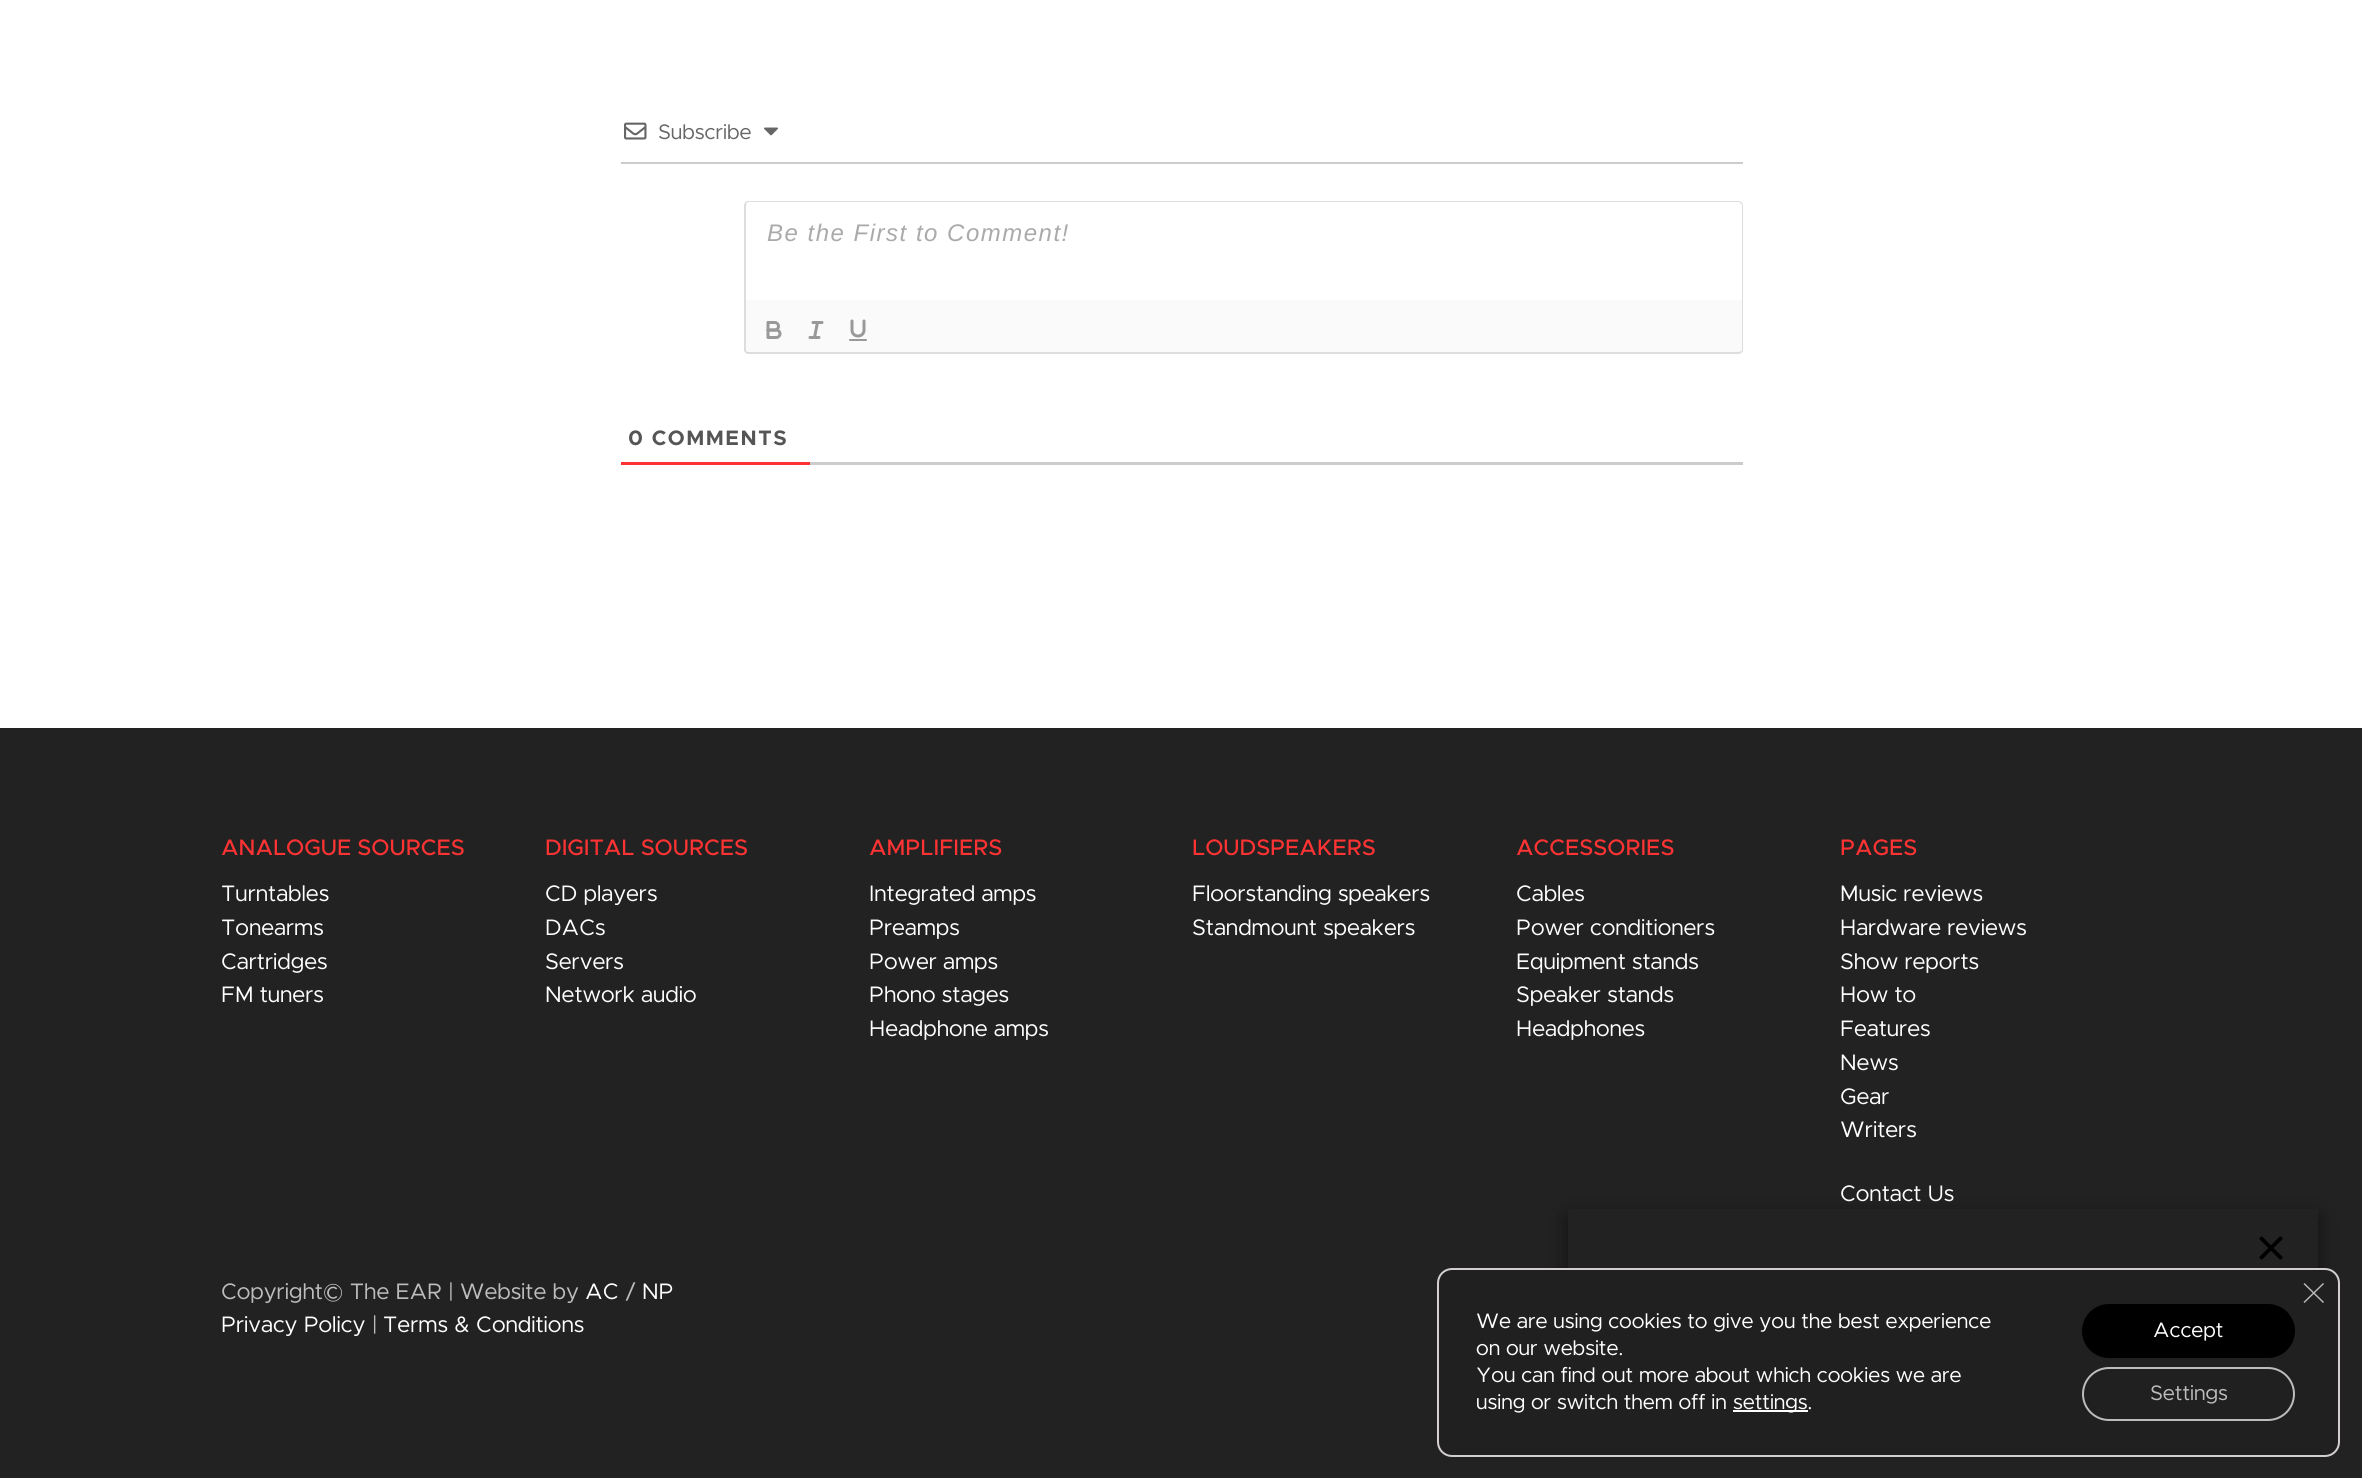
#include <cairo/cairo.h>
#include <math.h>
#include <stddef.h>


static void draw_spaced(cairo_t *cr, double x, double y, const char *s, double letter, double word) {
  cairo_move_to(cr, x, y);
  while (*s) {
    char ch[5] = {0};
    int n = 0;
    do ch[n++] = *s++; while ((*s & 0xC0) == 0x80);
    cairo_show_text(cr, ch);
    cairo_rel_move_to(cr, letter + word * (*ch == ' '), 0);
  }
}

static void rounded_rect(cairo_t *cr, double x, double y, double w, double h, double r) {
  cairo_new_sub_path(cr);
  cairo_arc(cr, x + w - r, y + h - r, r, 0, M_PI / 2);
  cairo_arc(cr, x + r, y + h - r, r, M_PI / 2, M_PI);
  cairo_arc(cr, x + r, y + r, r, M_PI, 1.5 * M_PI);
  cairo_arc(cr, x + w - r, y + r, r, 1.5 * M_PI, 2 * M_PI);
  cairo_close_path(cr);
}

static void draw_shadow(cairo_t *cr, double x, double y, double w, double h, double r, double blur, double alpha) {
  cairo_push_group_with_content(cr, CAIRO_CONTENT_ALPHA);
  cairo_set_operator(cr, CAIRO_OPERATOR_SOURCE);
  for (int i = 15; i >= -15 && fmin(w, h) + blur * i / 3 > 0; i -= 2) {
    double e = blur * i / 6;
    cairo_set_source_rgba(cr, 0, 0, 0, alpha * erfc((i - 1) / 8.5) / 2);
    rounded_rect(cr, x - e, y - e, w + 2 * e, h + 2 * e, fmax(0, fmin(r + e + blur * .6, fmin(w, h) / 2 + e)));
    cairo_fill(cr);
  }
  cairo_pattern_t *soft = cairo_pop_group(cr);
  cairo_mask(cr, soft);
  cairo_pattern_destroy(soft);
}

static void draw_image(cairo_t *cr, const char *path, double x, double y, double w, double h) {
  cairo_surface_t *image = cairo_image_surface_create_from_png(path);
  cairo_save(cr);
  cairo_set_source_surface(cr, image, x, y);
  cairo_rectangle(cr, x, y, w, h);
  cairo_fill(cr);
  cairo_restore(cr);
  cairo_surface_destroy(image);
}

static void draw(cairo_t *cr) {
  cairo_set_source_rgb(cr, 1, 1, 1);
  cairo_paint(cr);
  cairo_set_source_rgb(cr, 204 / 255.0, 204 / 255.0, 204 / 255.0);
  cairo_rectangle(cr, 621, 162, 1122, 2);
  cairo_fill(cr);
  draw_image(cr, "images/1.png", 624, 122, 23, 18);
  draw_image(cr, "images/2.png", 764, 127, 14, 9);
  cairo_set_source_rgb(cr, 221 / 255.0, 221 / 255.0, 221 / 255.0);
  cairo_set_fill_rule(cr, CAIRO_FILL_RULE_EVEN_ODD);
  cairo_new_path(cr);
  cairo_move_to(cr, 748, 201);
  cairo_line_to(cr, 1738, 201);
  cairo_curve_to(cr, 1741, 201, 1743, 203, 1743, 206);
  cairo_line_to(cr, 1743, 300);
  cairo_line_to(cr, 744, 300);
  cairo_line_to(cr, 744, 206);
  cairo_curve_to(cr, 744, 203, 746, 201, 748, 201);
  cairo_close_path(cr);
  cairo_move_to(cr, 748, 202);
  cairo_line_to(cr, 1738, 202);
  cairo_curve_to(cr, 1740, 202, 1742, 204, 1742, 206);
  cairo_line_to(cr, 1742, 300);
  cairo_line_to(cr, 746, 300);
  cairo_line_to(cr, 746, 206);
  cairo_curve_to(cr, 746, 204, 747, 202, 748, 202);
  cairo_close_path(cr);
  cairo_fill(cr);
  cairo_set_source_rgb(cr, 250 / 255.0, 250 / 255.0, 250 / 255.0);
  cairo_new_path(cr);
  cairo_move_to(cr, 744, 300);
  cairo_line_to(cr, 1743, 300);
  cairo_line_to(cr, 1743, 349);
  cairo_curve_to(cr, 1743, 352, 1741, 354, 1738, 354);
  cairo_line_to(cr, 749, 354);
  cairo_curve_to(cr, 746, 354, 744, 352, 744, 349);
  cairo_close_path(cr);
  cairo_fill(cr);
  cairo_set_source_rgb(cr, 221 / 255.0, 221 / 255.0, 221 / 255.0);
  cairo_new_path(cr);
  cairo_move_to(cr, 744, 300);
  cairo_line_to(cr, 1743, 300);
  cairo_line_to(cr, 1743, 350);
  cairo_curve_to(cr, 1743, 352, 1741, 354, 1738, 354);
  cairo_line_to(cr, 748, 354);
  cairo_curve_to(cr, 746, 354, 744, 352, 744, 350);
  cairo_close_path(cr);
  cairo_move_to(cr, 746, 300);
  cairo_line_to(cr, 1742, 300);
  cairo_line_to(cr, 1742, 350);
  cairo_curve_to(cr, 1742, 351, 1740, 352, 1738, 352);
  cairo_line_to(cr, 748, 352);
  cairo_curve_to(cr, 747, 352, 746, 351, 746, 350);
  cairo_close_path(cr);
  cairo_fill(cr);
  draw_image(cr, "images/3.png", 766, 321, 16, 18);
  cairo_new_path(cr);
  cairo_move_to(cr, 813, 322.5);
  cairo_line_to(cr, 822, 322.5);
  cairo_move_to(cr, 810, 337.5);
  cairo_line_to(cr, 819, 337.5);
  cairo_move_to(cr, 814.5, 337.5);
  cairo_line_to(cr, 817.5, 322.5);
  cairo_move_to(cr, 852, 321);
  cairo_line_to(cr, 852, 330);
  cairo_curve_to(cr, 852, 333.5, 854.5, 336, 858, 336);
  cairo_curve_to(cr, 861.5, 336, 864, 333.5, 864, 330);
  cairo_line_to(cr, 864, 321);
  cairo_set_source_rgb(cr, 153 / 255.0, 153 / 255.0, 153 / 255.0);
  cairo_set_line_width(cr, 3);
  cairo_set_line_cap(cr, CAIRO_LINE_CAP_ROUND);
  cairo_set_line_join(cr, CAIRO_LINE_JOIN_ROUND);
  cairo_stroke(cr);
  rounded_rect(cr, 849, 339, 18, 2, 1);
  cairo_fill(cr);
  cairo_set_source_rgb(cr, 204 / 255.0, 204 / 255.0, 204 / 255.0);
  cairo_rectangle(cr, 810, 462, 933, 3);
  cairo_fill(cr);
  cairo_set_source_rgb(cr, 1, 51 / 255.0, 51 / 255.0);
  cairo_rectangle(cr, 621, 462, 189, 3);
  cairo_fill(cr);
  cairo_set_source_rgb(cr, 34 / 255.0, 34 / 255.0, 34 / 255.0);
  cairo_rectangle(cr, 0, 728, 2362, 750);
  cairo_fill(cr);
  cairo_save(cr);
  cairo_new_path(cr);
  cairo_move_to(cr, 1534, 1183);
  cairo_line_to(cr, 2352, 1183);
  cairo_line_to(cr, 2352, 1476);
  cairo_line_to(cr, 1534, 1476);
  cairo_close_path(cr);
  cairo_move_to(cr, 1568, 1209);
  cairo_line_to(cr, 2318, 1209);
  cairo_line_to(cr, 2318, 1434);
  cairo_line_to(cr, 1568, 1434);
  cairo_close_path(cr);
  cairo_clip(cr);
  cairo_set_source_rgb(cr, 0, 0, 0);
  draw_shadow(cr, 1568, 1217, 750, 225, 0, 11, 0.5);
  cairo_restore(cr);
  draw_image(cr, "images/4.png", 2259, 1236, 24, 24);
  cairo_set_source_rgb(cr, 32 / 255.0, 32 / 255.0, 32 / 255.0);
  rounded_rect(cr, 1438, 1269, 901, 187, 14);
  cairo_fill_preserve(cr);
  cairo_set_source_rgb(cr, 211 / 255.0, 206 / 255.0, 210 / 255.0);
  cairo_set_line_width(cr, 2);
  cairo_set_line_cap(cr, CAIRO_LINE_CAP_BUTT);
  cairo_set_line_join(cr, CAIRO_LINE_JOIN_MITER);
  cairo_stroke(cr);
  cairo_set_source_rgb(cr, 1, 1, 1);
  cairo_rectangle(cr, 1733, 1410, 75, 2);
  cairo_fill(cr);
  cairo_set_source_rgb(cr, 188 / 255.0, 188 / 255.0, 188 / 255.0);
  cairo_set_fill_rule(cr, CAIRO_FILL_RULE_WINDING);
  cairo_new_path(cr);
  cairo_move_to(cr, 2323, 1283);
  cairo_line_to(cr, 2324, 1284);
  cairo_line_to(cr, 2304.5, 1303);
  cairo_line_to(cr, 2303.5, 1302);
  cairo_close_path(cr);
  cairo_fill(cr);
  cairo_new_path(cr);
  cairo_move_to(cr, 2303.5, 1284);
  cairo_line_to(cr, 2304.5, 1283);
  cairo_line_to(cr, 2324, 1302);
  cairo_line_to(cr, 2323, 1303);
  cairo_close_path(cr);
  cairo_fill(cr);
  cairo_set_source_rgb(cr, 0, 0, 0);
  rounded_rect(cr, 2082, 1304, 213, 54, 27);
  cairo_fill(cr);
  rounded_rect(cr, 2083, 1368, 211, 52, 26);
  cairo_set_source_rgb(cr, 188 / 255.0, 188 / 255.0, 188 / 255.0);
  cairo_stroke(cr);
  cairo_select_font_face(cr, "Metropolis", CAIRO_FONT_SLANT_NORMAL, CAIRO_FONT_WEIGHT_NORMAL);
  cairo_set_font_size(cr, 21);
  cairo_set_source_rgb(cr, 102 / 255.0, 102 / 255.0, 102 / 255.0);
  cairo_move_to(cr, 658, 139);
  cairo_show_text(cr, "Subscribe");
  cairo_select_font_face(cr, "Liberation Sans", CAIRO_FONT_SLANT_ITALIC, CAIRO_FONT_WEIGHT_NORMAL);
  cairo_set_font_size(cr, 24);
  cairo_set_source_rgb(cr, 170 / 255.0, 170 / 255.0, 170 / 255.0);
  draw_spaced(cr, 767, 241, "Be the First to Comment!", 1.5, 0);
  cairo_select_font_face(cr, "Metropolis", CAIRO_FONT_SLANT_NORMAL, CAIRO_FONT_WEIGHT_BOLD);
  cairo_set_font_size(cr, 21);
  cairo_set_source_rgb(cr, 85 / 255.0, 85 / 255.0, 85 / 255.0);
  draw_spaced(cr, 628, 445, "0 COMMENTS", 1.5, 0);
  cairo_select_font_face(cr, "Metropolis Medium", CAIRO_FONT_SLANT_NORMAL, CAIRO_FONT_WEIGHT_NORMAL);
  cairo_set_font_size(cr, 22.5);
  cairo_set_source_rgb(cr, 1, 51 / 255.0, 51 / 255.0);
  cairo_move_to(cr, 221, 855);
  cairo_show_text(cr, "ANALOGUE SOURCES");
  cairo_select_font_face(cr, "Metropolis", CAIRO_FONT_SLANT_NORMAL, CAIRO_FONT_WEIGHT_NORMAL);
  cairo_set_source_rgb(cr, 1, 1, 1);
  cairo_move_to(cr, 221, 901);
  cairo_show_text(cr, "Turntables");
  cairo_move_to(cr, 221, 935);
  cairo_show_text(cr, "Tonearms");
  cairo_move_to(cr, 221, 969);
  cairo_show_text(cr, "Cartridges");
  cairo_move_to(cr, 221, 1002);
  cairo_show_text(cr, "FM tuners");
  cairo_select_font_face(cr, "Metropolis Medium", CAIRO_FONT_SLANT_NORMAL, CAIRO_FONT_WEIGHT_NORMAL);
  cairo_set_source_rgb(cr, 1, 51 / 255.0, 51 / 255.0);
  cairo_move_to(cr, 545, 855);
  cairo_show_text(cr, "DIGITAL SOURCES");
  cairo_select_font_face(cr, "Metropolis", CAIRO_FONT_SLANT_NORMAL, CAIRO_FONT_WEIGHT_NORMAL);
  cairo_set_source_rgb(cr, 1, 1, 1);
  cairo_move_to(cr, 545, 901);
  cairo_show_text(cr, "CD players");
  cairo_move_to(cr, 545, 935);
  cairo_show_text(cr, "DACs");
  cairo_move_to(cr, 545, 969);
  cairo_show_text(cr, "Servers");
  cairo_move_to(cr, 545, 1002);
  cairo_show_text(cr, "Network audio");
  cairo_select_font_face(cr, "Metropolis Medium", CAIRO_FONT_SLANT_NORMAL, CAIRO_FONT_WEIGHT_NORMAL);
  cairo_set_source_rgb(cr, 1, 51 / 255.0, 51 / 255.0);
  cairo_move_to(cr, 869, 855);
  cairo_show_text(cr, "AMPLIFIERS");
  cairo_select_font_face(cr, "Metropolis", CAIRO_FONT_SLANT_NORMAL, CAIRO_FONT_WEIGHT_NORMAL);
  cairo_set_source_rgb(cr, 1, 1, 1);
  cairo_move_to(cr, 869, 901);
  cairo_show_text(cr, "Integrated amps");
  cairo_move_to(cr, 869, 935);
  cairo_show_text(cr, "Preamps");
  cairo_move_to(cr, 869, 969);
  cairo_show_text(cr, "Power amps");
  cairo_move_to(cr, 869, 1002);
  cairo_show_text(cr, "Phono stages");
  cairo_move_to(cr, 869, 1036);
  cairo_show_text(cr, "Headphone amps");
  cairo_select_font_face(cr, "Metropolis Medium", CAIRO_FONT_SLANT_NORMAL, CAIRO_FONT_WEIGHT_NORMAL);
  cairo_set_source_rgb(cr, 1, 51 / 255.0, 51 / 255.0);
  cairo_move_to(cr, 1192, 855);
  cairo_show_text(cr, "LOUDSPEAKERS");
  cairo_select_font_face(cr, "Metropolis", CAIRO_FONT_SLANT_NORMAL, CAIRO_FONT_WEIGHT_NORMAL);
  cairo_set_source_rgb(cr, 1, 1, 1);
  cairo_move_to(cr, 1192, 901);
  cairo_show_text(cr, "Floorstanding speakers");
  cairo_move_to(cr, 1192, 935);
  cairo_show_text(cr, "Standmount speakers");
  cairo_select_font_face(cr, "Metropolis Medium", CAIRO_FONT_SLANT_NORMAL, CAIRO_FONT_WEIGHT_NORMAL);
  cairo_set_source_rgb(cr, 1, 51 / 255.0, 51 / 255.0);
  cairo_move_to(cr, 1516, 855);
  cairo_show_text(cr, "ACCESSORIES");
  cairo_select_font_face(cr, "Metropolis", CAIRO_FONT_SLANT_NORMAL, CAIRO_FONT_WEIGHT_NORMAL);
  cairo_set_source_rgb(cr, 1, 1, 1);
  cairo_move_to(cr, 1516, 901);
  cairo_show_text(cr, "Cables");
  cairo_move_to(cr, 1516, 935);
  cairo_show_text(cr, "Power conditioners");
  cairo_move_to(cr, 1516, 969);
  cairo_show_text(cr, "Equipment stands");
  cairo_move_to(cr, 1516, 1002);
  cairo_show_text(cr, "Speaker stands");
  cairo_move_to(cr, 1516, 1036);
  cairo_show_text(cr, "Headphones");
  cairo_select_font_face(cr, "Metropolis Medium", CAIRO_FONT_SLANT_NORMAL, CAIRO_FONT_WEIGHT_NORMAL);
  cairo_set_source_rgb(cr, 1, 51 / 255.0, 51 / 255.0);
  cairo_move_to(cr, 1840, 855);
  cairo_show_text(cr, "PAGES");
  cairo_select_font_face(cr, "Metropolis", CAIRO_FONT_SLANT_NORMAL, CAIRO_FONT_WEIGHT_NORMAL);
  cairo_set_source_rgb(cr, 1, 1, 1);
  cairo_move_to(cr, 1840, 901);
  cairo_show_text(cr, "Music reviews");
  cairo_move_to(cr, 1840, 935);
  cairo_show_text(cr, "Hardware reviews");
  cairo_move_to(cr, 1840, 969);
  cairo_show_text(cr, "Show reports");
  cairo_move_to(cr, 1840, 1002);
  cairo_show_text(cr, "How to");
  cairo_move_to(cr, 1840, 1036);
  cairo_show_text(cr, "Features");
  cairo_move_to(cr, 1840, 1070);
  cairo_show_text(cr, "News");
  cairo_move_to(cr, 1840, 1104);
  cairo_show_text(cr, "Gear");
  cairo_move_to(cr, 1840, 1137);
  cairo_show_text(cr, "Writers");
  cairo_move_to(cr, 1840, 1201);
  cairo_show_text(cr, "Contact Us");
  cairo_set_source_rgb(cr, 189 / 255.0, 189 / 255.0, 189 / 255.0);
  cairo_move_to(cr, 221, 1299);
  cairo_show_text(cr, "Copyright© The EAR | Website by");
  cairo_set_source_rgb(cr, 1, 1, 1);
  cairo_move_to(cr, 585, 1299);
  cairo_show_text(cr, "AC");
  cairo_set_source_rgb(cr, 189 / 255.0, 189 / 255.0, 189 / 255.0);
  cairo_move_to(cr, 625, 1299);
  cairo_show_text(cr, "/");
  cairo_set_source_rgb(cr, 1, 1, 1);
  cairo_move_to(cr, 642, 1299);
  cairo_show_text(cr, "NP");
  cairo_move_to(cr, 221, 1332);
  cairo_show_text(cr, "Privacy Policy");
  cairo_set_source_rgb(cr, 189 / 255.0, 189 / 255.0, 189 / 255.0);
  cairo_move_to(cr, 372, 1332);
  cairo_show_text(cr, "|");
  cairo_set_source_rgb(cr, 1, 1, 1);
  cairo_move_to(cr, 383, 1332);
  cairo_show_text(cr, "Terms & Conditions");
  cairo_set_font_size(cr, 21);
  cairo_move_to(cr, 1476, 1328);
  cairo_show_text(cr, "We are using cookies to give you the best experience");
  cairo_move_to(cr, 1476, 1355);
  cairo_show_text(cr, "on our website.");
  cairo_move_to(cr, 1476, 1382);
  cairo_show_text(cr, "You can find out more about which cookies we are");
  cairo_move_to(cr, 1476, 1409);
  cairo_show_text(cr, "using or switch them off in");
  cairo_move_to(cr, 1733, 1409);
  cairo_show_text(cr, "settings.");
  cairo_move_to(cr, 2153, 1337);
  cairo_show_text(cr, "Accept");
  cairo_set_source_rgb(cr, 189 / 255.0, 189 / 255.0, 189 / 255.0);
  cairo_move_to(cr, 2150, 1400);
  cairo_show_text(cr, "Settings");
}

int main(void) {
  cairo_surface_t *surface = cairo_image_surface_create(CAIRO_FORMAT_RGB24, 2362, 1478);
  cairo_t *cr = cairo_create(surface);
  cairo_font_options_t *options = cairo_font_options_create();
  cairo_font_options_set_hint_metrics(options, CAIRO_HINT_METRICS_OFF);
  cairo_font_options_set_hint_style(options, CAIRO_HINT_STYLE_NONE);
  cairo_set_font_options(cr, options);
  cairo_set_miter_limit(cr, 4);
  draw(cr);
  cairo_surface_write_to_png(surface, "out.png");
  cairo_font_options_destroy(options);
  cairo_destroy(cr);
  cairo_surface_destroy(surface);
  return 0;
}
